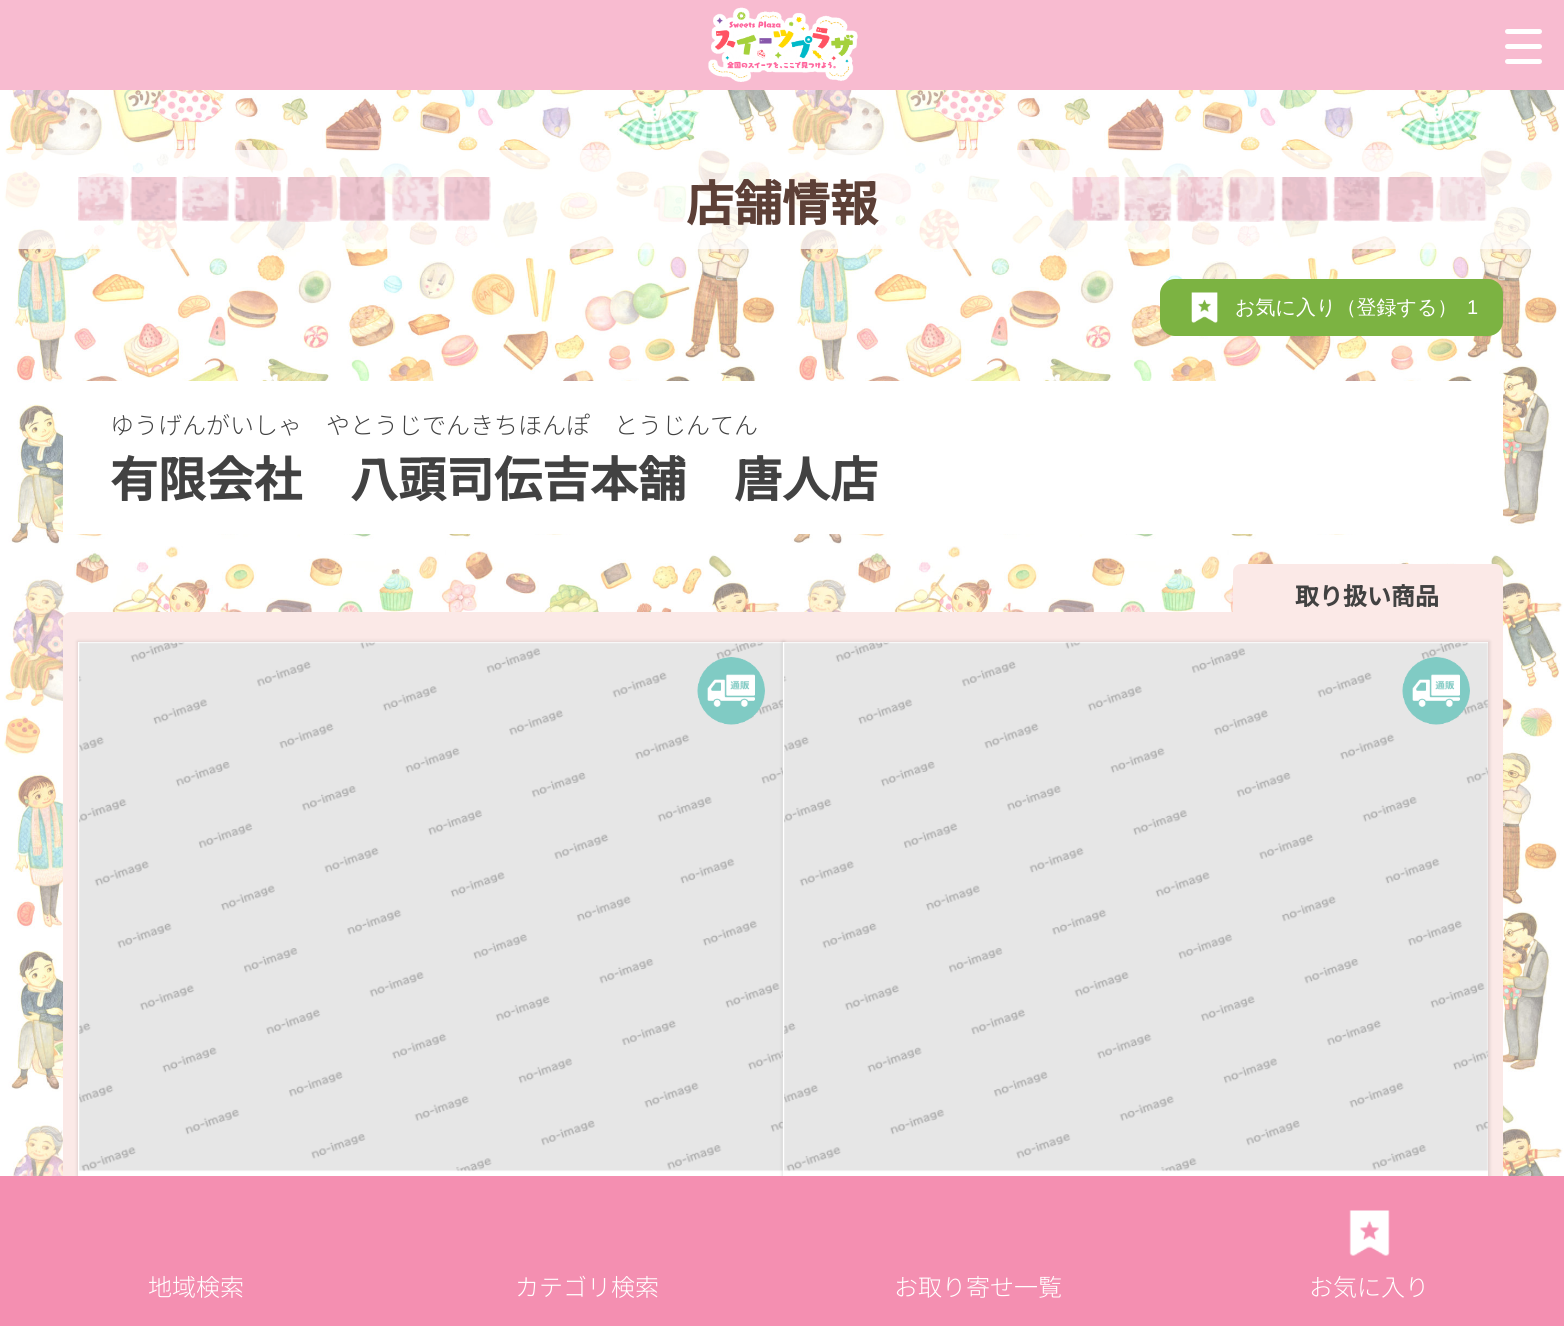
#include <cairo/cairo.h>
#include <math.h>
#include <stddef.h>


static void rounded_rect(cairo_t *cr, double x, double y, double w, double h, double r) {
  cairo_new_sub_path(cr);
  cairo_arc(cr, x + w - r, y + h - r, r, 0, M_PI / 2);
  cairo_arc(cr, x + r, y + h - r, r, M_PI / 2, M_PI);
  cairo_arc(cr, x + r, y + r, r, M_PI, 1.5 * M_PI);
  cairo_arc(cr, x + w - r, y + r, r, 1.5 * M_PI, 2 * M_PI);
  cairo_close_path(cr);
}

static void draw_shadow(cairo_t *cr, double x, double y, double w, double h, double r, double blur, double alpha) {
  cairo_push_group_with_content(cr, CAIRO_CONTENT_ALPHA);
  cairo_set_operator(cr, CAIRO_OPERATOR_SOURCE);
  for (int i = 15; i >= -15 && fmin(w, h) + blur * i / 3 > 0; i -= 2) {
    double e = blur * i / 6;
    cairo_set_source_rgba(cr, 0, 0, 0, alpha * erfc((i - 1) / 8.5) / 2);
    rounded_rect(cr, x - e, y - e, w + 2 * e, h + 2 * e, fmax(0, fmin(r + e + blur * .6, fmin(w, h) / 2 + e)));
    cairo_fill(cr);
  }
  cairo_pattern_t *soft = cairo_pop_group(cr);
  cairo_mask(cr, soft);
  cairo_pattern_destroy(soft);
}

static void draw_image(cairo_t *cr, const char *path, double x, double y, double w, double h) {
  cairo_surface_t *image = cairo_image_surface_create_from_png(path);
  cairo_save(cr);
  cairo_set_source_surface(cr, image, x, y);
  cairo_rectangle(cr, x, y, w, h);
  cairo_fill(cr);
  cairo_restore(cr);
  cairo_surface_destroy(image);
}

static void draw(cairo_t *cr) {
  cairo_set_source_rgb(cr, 1, 1, 1);
  cairo_paint(cr);
  draw_image(cr, "images/1.png", 4, 90, 1559, 1086);
  cairo_set_source_rgb(cr, 248 / 255.0, 187 / 255.0, 208 / 255.0);
  cairo_rectangle(cr, 0, 0, 1564, 90);
  cairo_fill(cr);
  draw_image(cr, "images/2.png", 708, 7, 150, 75);
  cairo_set_source_rgb(cr, 1, 1, 1);
  rounded_rect(cr, 1505, 44, 37, 5, 2.5);
  cairo_fill(cr);
  rounded_rect(cr, 1505, 29, 37, 5, 2.5);
  cairo_fill(cr);
  rounded_rect(cr, 1505, 59, 37, 5, 2.5);
  cairo_fill(cr);
  cairo_set_source_rgba(cr, 1, 1, 1, 0.75);
  cairo_rectangle(cr, 4, 150, 1552, 99);
  cairo_fill(cr);
  draw_image(cr, "images/3.png", 78, 177, 1409, 45);
  cairo_set_source_rgb(cr, 124 / 255.0, 179 / 255.0, 66 / 255.0);
  rounded_rect(cr, 1160, 279, 343, 57, 15);
  cairo_fill(cr);
  draw_image(cr, "images/4.png", 1191, 292, 27, 31);
  cairo_set_source_rgb(cr, 1, 1, 1);
  cairo_rectangle(cr, 63, 381, 1440, 153);
  cairo_fill(cr);
  cairo_set_source_rgb(cr, 251 / 255.0, 233 / 255.0, 231 / 255.0);
  cairo_new_path(cr);
  cairo_move_to(cr, 1241, 564);
  cairo_line_to(cr, 1495, 564);
  cairo_curve_to(cr, 1499.5, 564, 1503, 567.5, 1503, 572);
  cairo_line_to(cr, 1503, 612);
  cairo_line_to(cr, 1233, 612);
  cairo_line_to(cr, 1233, 572);
  cairo_curve_to(cr, 1233, 567.5, 1236.5, 564, 1241, 564);
  cairo_close_path(cr);
  cairo_fill(cr);
  cairo_new_path(cr);
  cairo_move_to(cr, 71, 612);
  cairo_line_to(cr, 1503, 612);
  cairo_line_to(cr, 1503, 1326);
  cairo_curve_to(cr, 1503, 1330.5, 1499.5, 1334, 1495, 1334);
  cairo_line_to(cr, 71, 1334);
  cairo_curve_to(cr, 66.5, 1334, 63, 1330.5, 63, 1326);
  cairo_line_to(cr, 63, 620);
  cairo_curve_to(cr, 63, 615.5, 66.5, 612, 71, 612);
  cairo_close_path(cr);
  cairo_fill(cr);
  cairo_set_source_rgb(cr, 0, 0, 0);
  draw_shadow(cr, 77, 641, 708, 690, 0, 1.5, 0.1);
  cairo_set_source_rgb(cr, 1, 1, 1);
  cairo_rectangle(cr, 78, 642, 705, 534);
  cairo_fill(cr);
  draw_image(cr, "images/5.png", 79, 642, 704, 530);
  draw_image(cr, "images/6.png", 697, 657, 68, 68);
  cairo_set_source_rgb(cr, 0, 0, 0);
  draw_shadow(cr, 782, 641, 708, 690, 0, 1.5, 0.1);
  cairo_set_source_rgb(cr, 1, 1, 1);
  cairo_rectangle(cr, 783, 642, 705, 534);
  cairo_fill(cr);
  draw_image(cr, "images/5.png", 784, 642, 704, 530);
  draw_image(cr, "images/7.png", 1402, 657, 68, 68);
  cairo_set_source_rgb(cr, 244 / 255.0, 143 / 255.0, 177 / 255.0);
  cairo_rectangle(cr, 0, 1176, 1564, 150);
  cairo_fill(cr);
  draw_image(cr, "images/8.png", 1349, 1210, 41, 46);
  cairo_select_font_face(cr, "Noto Sans JP", CAIRO_FONT_SLANT_NORMAL, CAIRO_FONT_WEIGHT_BOLD);
  cairo_set_font_size(cr, 48);
  cairo_set_source_rgb(cr, 93 / 255.0, 64 / 255.0, 55 / 255.0);
  cairo_move_to(cr, 686, 221);
  cairo_show_text(cr, "店舗情報");
  cairo_select_font_face(cr, "WenQuanYi Zen Hei Medium", CAIRO_FONT_SLANT_NORMAL, CAIRO_FONT_WEIGHT_NORMAL);
  cairo_set_font_size(cr, 20);
  cairo_set_source_rgb(cr, 1, 1, 1);
  cairo_move_to(cr, 1235, 314);
  cairo_show_text(cr, "お気に入り（登録する）");
  cairo_select_font_face(cr, "Liberation Sans", CAIRO_FONT_SLANT_NORMAL, CAIRO_FONT_WEIGHT_NORMAL);
  cairo_move_to(cr, 1467, 314);
  cairo_show_text(cr, "1");
  cairo_select_font_face(cr, "Noto Sans JP Light", CAIRO_FONT_SLANT_NORMAL, CAIRO_FONT_WEIGHT_NORMAL);
  cairo_set_font_size(cr, 24);
  cairo_set_source_rgb(cr, 66 / 255.0, 66 / 255.0, 66 / 255.0);
  cairo_move_to(cr, 110, 434);
  cairo_show_text(cr, "ゆうげんがいしゃ　やとうじでんきちほんぽ　とうじんてん");
  cairo_select_font_face(cr, "Noto Sans JP", CAIRO_FONT_SLANT_NORMAL, CAIRO_FONT_WEIGHT_BOLD);
  cairo_set_font_size(cr, 48);
  cairo_move_to(cr, 110, 497);
  cairo_show_text(cr, "有限会社　八頭司伝吉本舗　唐人店");
  cairo_set_font_size(cr, 24);
  cairo_move_to(cr, 1295, 605);
  cairo_show_text(cr, "取り扱い商品");
  cairo_select_font_face(cr, "Noto Sans JP Light", CAIRO_FONT_SLANT_NORMAL, CAIRO_FONT_WEIGHT_NORMAL);
  cairo_set_source_rgb(cr, 1, 1, 1);
  cairo_move_to(cr, 148, 1296);
  cairo_show_text(cr, "地域検索");
  cairo_move_to(cr, 515, 1296);
  cairo_show_text(cr, "カテゴリ検索");
  cairo_move_to(cr, 894, 1296);
  cairo_show_text(cr, "お取り寄せ一覧");
  cairo_move_to(cr, 1309, 1296);
  cairo_show_text(cr, "お気に入り");
}

int main(void) {
  cairo_surface_t *surface = cairo_image_surface_create(CAIRO_FORMAT_RGB24, 1564, 1326);
  cairo_t *cr = cairo_create(surface);
  cairo_font_options_t *options = cairo_font_options_create();
  cairo_font_options_set_hint_metrics(options, CAIRO_HINT_METRICS_OFF);
  cairo_font_options_set_hint_style(options, CAIRO_HINT_STYLE_NONE);
  cairo_set_font_options(cr, options);
  cairo_set_miter_limit(cr, 4);
  draw(cr);
  cairo_surface_write_to_png(surface, "out.png");
  cairo_font_options_destroy(options);
  cairo_destroy(cr);
  cairo_surface_destroy(surface);
  return 0;
}
